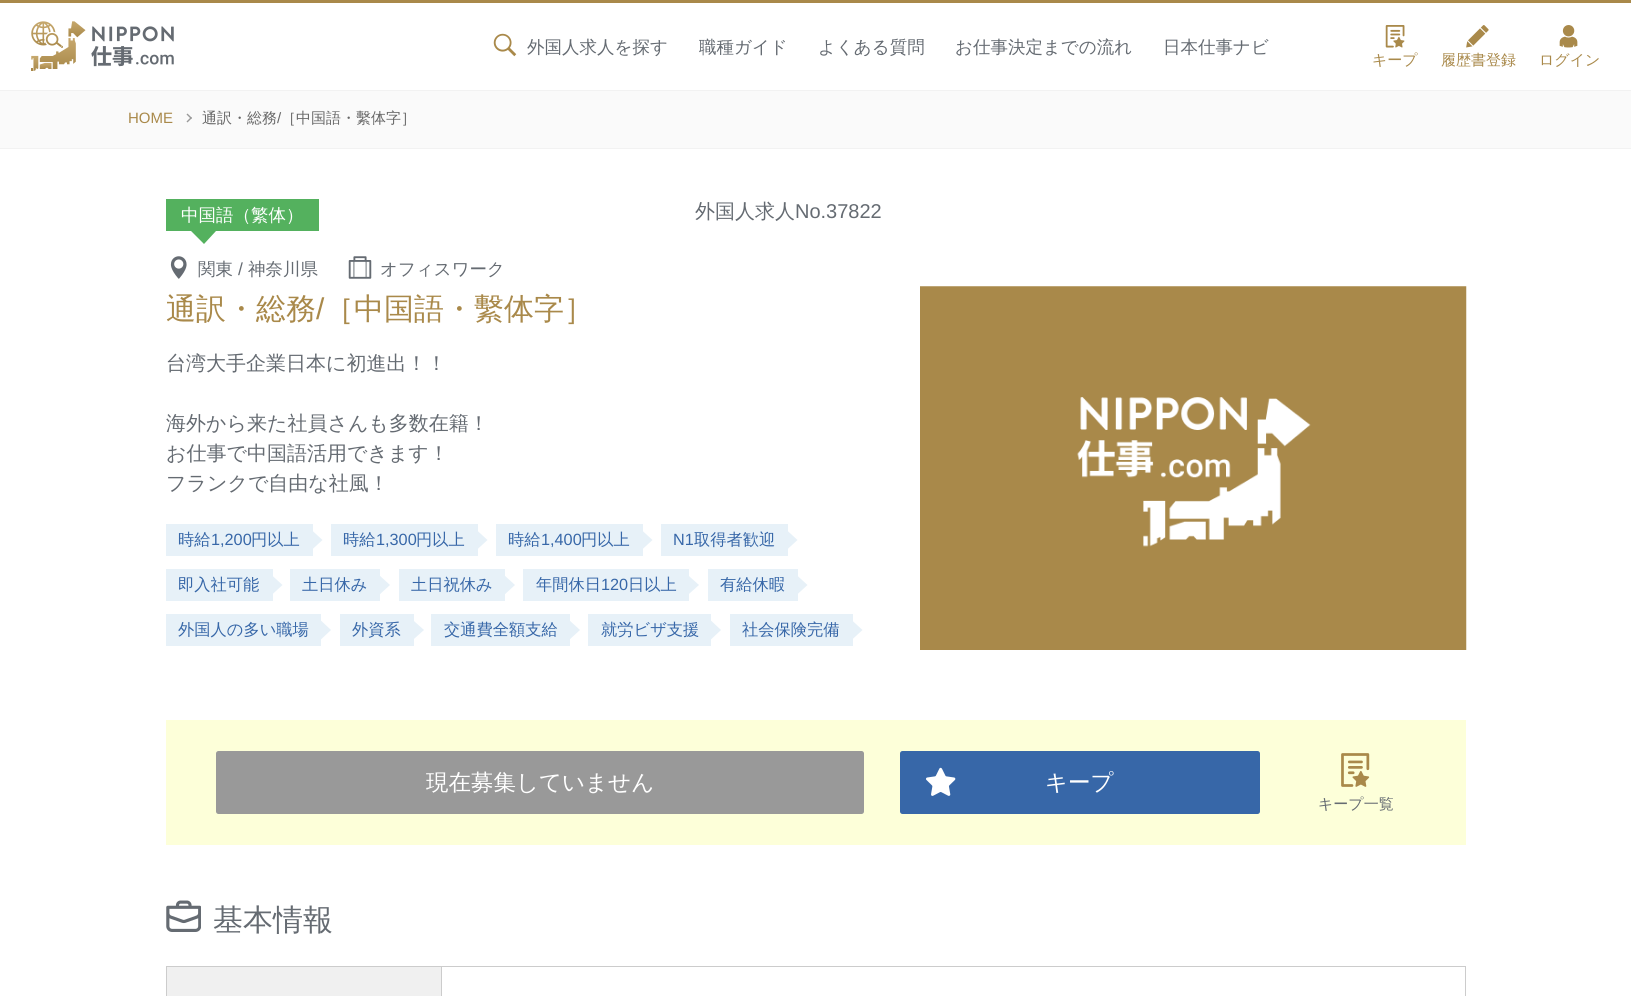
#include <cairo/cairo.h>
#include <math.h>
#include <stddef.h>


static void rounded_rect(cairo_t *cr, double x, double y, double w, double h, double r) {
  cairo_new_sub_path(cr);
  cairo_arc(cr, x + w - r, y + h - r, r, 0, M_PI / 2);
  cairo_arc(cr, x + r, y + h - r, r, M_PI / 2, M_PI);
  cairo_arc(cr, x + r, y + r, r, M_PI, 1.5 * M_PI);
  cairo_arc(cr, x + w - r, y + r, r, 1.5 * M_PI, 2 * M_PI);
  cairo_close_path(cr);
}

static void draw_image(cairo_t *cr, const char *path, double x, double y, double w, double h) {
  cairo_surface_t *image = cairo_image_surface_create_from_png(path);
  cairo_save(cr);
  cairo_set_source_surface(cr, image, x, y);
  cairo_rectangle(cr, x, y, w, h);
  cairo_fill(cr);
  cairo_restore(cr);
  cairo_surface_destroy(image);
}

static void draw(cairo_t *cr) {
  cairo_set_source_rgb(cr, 1, 1, 1);
  cairo_paint(cr);
  cairo_set_source_rgb(cr, 169 / 255.0, 137 / 255.0, 74 / 255.0);
  cairo_rectangle(cr, 0, 0, 1631, 3);
  cairo_fill(cr);
  cairo_set_source_rgb(cr, 242 / 255.0, 242 / 255.0, 242 / 255.0);
  cairo_rectangle(cr, 0, 90, 1631, 1);
  cairo_fill(cr);
  draw_image(cr, "images/1.png", 31, 21, 143, 50);
  draw_image(cr, "images/2.png", 493, 33, 24, 24);
  draw_image(cr, "images/3.png", 1385, 25, 20, 23);
  draw_image(cr, "images/4.png", 1466, 25, 23, 23);
  draw_image(cr, "images/5.png", 1559, 25, 19, 23);
  cairo_set_source_rgb(cr, 250 / 255.0, 250 / 255.0, 250 / 255.0);
  cairo_rectangle(cr, 0, 91, 1631, 57);
  cairo_fill(cr);
  cairo_set_source_rgb(cr, 242 / 255.0, 242 / 255.0, 242 / 255.0);
  cairo_rectangle(cr, 0, 148, 1631, 1);
  cairo_fill(cr);
  cairo_set_source_rgb(cr, 153 / 255.0, 153 / 255.0, 153 / 255.0);
  cairo_new_path(cr);
  cairo_move_to(cr, 186.5, 114.5);
  cairo_line_to(cr, 187.5, 113.5);
  cairo_line_to(cr, 192, 118);
  cairo_line_to(cr, 191, 119);
  cairo_close_path(cr);
  cairo_fill(cr);
  cairo_new_path(cr);
  cairo_move_to(cr, 186.5, 121.5);
  cairo_line_to(cr, 191, 117);
  cairo_line_to(cr, 192, 118);
  cairo_line_to(cr, 187.5, 122.5);
  cairo_close_path(cr);
  cairo_fill(cr);
  cairo_set_source_rgb(cr, 84 / 255.0, 177 / 255.0, 94 / 255.0);
  cairo_rectangle(cr, 166, 199, 153, 32);
  cairo_fill(cr);
  cairo_new_path(cr);
  cairo_move_to(cr, 191, 231);
  cairo_line_to(cr, 216, 231);
  cairo_line_to(cr, 204, 244);
  cairo_close_path(cr);
  cairo_fill(cr);
  draw_image(cr, "images/6.png", 170, 256, 17, 23);
  draw_image(cr, "images/7.png", 348, 256, 24, 23);
  cairo_set_source_rgb(cr, 231 / 255.0, 241 / 255.0, 248 / 255.0);
  cairo_rectangle(cr, 166, 524, 147, 32);
  cairo_fill(cr);
  cairo_new_path(cr);
  cairo_move_to(cr, 305, 556);
  cairo_line_to(cr, 305, 524);
  cairo_line_to(cr, 322.5, 540);
  cairo_close_path(cr);
  cairo_fill(cr);
  cairo_rectangle(cr, 331, 524, 147, 32);
  cairo_fill(cr);
  cairo_new_path(cr);
  cairo_move_to(cr, 470, 556);
  cairo_line_to(cr, 470, 524);
  cairo_line_to(cr, 487.5, 540);
  cairo_close_path(cr);
  cairo_fill(cr);
  cairo_rectangle(cr, 496, 524, 147, 32);
  cairo_fill(cr);
  cairo_new_path(cr);
  cairo_move_to(cr, 635, 556);
  cairo_line_to(cr, 635, 524);
  cairo_line_to(cr, 652.5, 540);
  cairo_close_path(cr);
  cairo_fill(cr);
  cairo_rectangle(cr, 661, 524, 127, 32);
  cairo_fill(cr);
  cairo_new_path(cr);
  cairo_move_to(cr, 780, 556);
  cairo_line_to(cr, 780, 524);
  cairo_line_to(cr, 797.5, 540);
  cairo_close_path(cr);
  cairo_fill(cr);
  cairo_rectangle(cr, 166, 569, 107, 32);
  cairo_fill(cr);
  cairo_new_path(cr);
  cairo_move_to(cr, 265, 601);
  cairo_line_to(cr, 265, 569);
  cairo_line_to(cr, 282.5, 585);
  cairo_close_path(cr);
  cairo_fill(cr);
  cairo_rectangle(cr, 290, 569, 90, 32);
  cairo_fill(cr);
  cairo_new_path(cr);
  cairo_move_to(cr, 372.5, 601);
  cairo_line_to(cr, 372.5, 569);
  cairo_line_to(cr, 390, 585);
  cairo_close_path(cr);
  cairo_fill(cr);
  cairo_rectangle(cr, 399, 569, 106, 32);
  cairo_fill(cr);
  cairo_new_path(cr);
  cairo_move_to(cr, 497.5, 601);
  cairo_line_to(cr, 497.5, 569);
  cairo_line_to(cr, 515, 585);
  cairo_close_path(cr);
  cairo_fill(cr);
  cairo_rectangle(cr, 523, 569, 166, 32);
  cairo_fill(cr);
  cairo_new_path(cr);
  cairo_move_to(cr, 681, 601);
  cairo_line_to(cr, 681, 569);
  cairo_line_to(cr, 699, 585);
  cairo_close_path(cr);
  cairo_fill(cr);
  cairo_rectangle(cr, 708, 569, 90, 32);
  cairo_fill(cr);
  cairo_new_path(cr);
  cairo_move_to(cr, 790, 601);
  cairo_line_to(cr, 790, 569);
  cairo_line_to(cr, 807.5, 585);
  cairo_close_path(cr);
  cairo_fill(cr);
  cairo_rectangle(cr, 166, 614, 155, 32);
  cairo_fill(cr);
  cairo_new_path(cr);
  cairo_move_to(cr, 314, 646);
  cairo_line_to(cr, 314, 614);
  cairo_line_to(cr, 331, 630);
  cairo_close_path(cr);
  cairo_fill(cr);
  cairo_rectangle(cr, 340, 614, 74, 32);
  cairo_fill(cr);
  cairo_new_path(cr);
  cairo_move_to(cr, 406, 646);
  cairo_line_to(cr, 406, 614);
  cairo_line_to(cr, 424, 630);
  cairo_close_path(cr);
  cairo_fill(cr);
  cairo_rectangle(cr, 431, 614, 139, 32);
  cairo_fill(cr);
  cairo_new_path(cr);
  cairo_move_to(cr, 562.5, 646);
  cairo_line_to(cr, 562.5, 614);
  cairo_line_to(cr, 580, 630);
  cairo_close_path(cr);
  cairo_fill(cr);
  cairo_rectangle(cr, 588, 614, 123, 32);
  cairo_fill(cr);
  cairo_new_path(cr);
  cairo_move_to(cr, 704, 646);
  cairo_line_to(cr, 704, 614);
  cairo_line_to(cr, 721, 630);
  cairo_close_path(cr);
  cairo_fill(cr);
  cairo_rectangle(cr, 730, 614, 123, 32);
  cairo_fill(cr);
  cairo_new_path(cr);
  cairo_move_to(cr, 845, 646);
  cairo_line_to(cr, 845, 614);
  cairo_line_to(cr, 862.5, 630);
  cairo_close_path(cr);
  cairo_fill(cr);
  draw_image(cr, "images/8.png", 920, 286, 547, 364);
  cairo_set_source_rgb(cr, 253 / 255.0, 1, 217 / 255.0);
  cairo_rectangle(cr, 166, 720, 1300, 125);
  cairo_fill(cr);
  cairo_set_source_rgb(cr, 153 / 255.0, 153 / 255.0, 153 / 255.0);
  rounded_rect(cr, 216, 751, 648, 63, 2.5);
  cairo_fill(cr);
  cairo_set_source_rgb(cr, 55 / 255.0, 103 / 255.0, 168 / 255.0);
  rounded_rect(cr, 900, 751, 360, 63, 2.5);
  cairo_fill(cr);
  draw_image(cr, "images/9.png", 926, 767, 30, 29);
  draw_image(cr, "images/10.png", 1341, 753, 29, 34);
  draw_image(cr, "images/11.png", 166, 900, 35, 32);
  cairo_set_source_rgb(cr, 240 / 255.0, 240 / 255.0, 240 / 255.0);
  cairo_rectangle(cr, 167, 967, 274, 29);
  cairo_fill(cr);
  cairo_set_source_rgb(cr, 204 / 255.0, 204 / 255.0, 204 / 255.0);
  cairo_rectangle(cr, 441, 966, 1025, 1);
  cairo_fill(cr);
  cairo_rectangle(cr, 441, 966, 1, 30);
  cairo_fill(cr);
  cairo_rectangle(cr, 166, 966, 277, 1);
  cairo_fill(cr);
  cairo_rectangle(cr, 166, 966, 1, 30);
  cairo_fill(cr);
  cairo_rectangle(cr, 1465, 966, 1, 30);
  cairo_fill(cr);
  cairo_select_font_face(cr, "WenQuanYi Zen Hei Medium", CAIRO_FONT_SLANT_NORMAL, CAIRO_FONT_WEIGHT_NORMAL);
  cairo_set_font_size(cr, 17.5);
  cairo_set_source_rgb(cr, 101 / 255.0, 107 / 255.0, 114 / 255.0);
  cairo_move_to(cr, 527, 53);
  cairo_show_text(cr, "外国人求人を探す");
  cairo_move_to(cr, 699, 53);
  cairo_show_text(cr, "職種ガイド");
  cairo_move_to(cr, 818, 53);
  cairo_show_text(cr, "よくある質問");
  cairo_move_to(cr, 955, 53);
  cairo_show_text(cr, "お仕事決定までの流れ");
  cairo_move_to(cr, 1163, 53);
  cairo_show_text(cr, "日本仕事ナビ");
  cairo_set_font_size(cr, 15);
  cairo_set_source_rgb(cr, 169 / 255.0, 137 / 255.0, 74 / 255.0);
  cairo_move_to(cr, 1372, 65);
  cairo_show_text(cr, "キープ");
  cairo_move_to(cr, 1441, 65);
  cairo_show_text(cr, "履歴書登録");
  cairo_move_to(cr, 1539, 65);
  cairo_show_text(cr, "ログイン");
  cairo_select_font_face(cr, "Liberation Sans", CAIRO_FONT_SLANT_NORMAL, CAIRO_FONT_WEIGHT_NORMAL);
  cairo_move_to(cr, 128, 123);
  cairo_show_text(cr, "HOME");
  cairo_select_font_face(cr, "WenQuanYi Zen Hei Medium", CAIRO_FONT_SLANT_NORMAL, CAIRO_FONT_WEIGHT_NORMAL);
  cairo_set_source_rgb(cr, 102 / 255.0, 102 / 255.0, 102 / 255.0);
  cairo_move_to(cr, 202, 123);
  cairo_show_text(cr, "通訳・総務");
  cairo_select_font_face(cr, "Liberation Sans", CAIRO_FONT_SLANT_NORMAL, CAIRO_FONT_WEIGHT_NORMAL);
  cairo_move_to(cr, 277, 123);
  cairo_show_text(cr, "/");
  cairo_select_font_face(cr, "WenQuanYi Zen Hei Medium", CAIRO_FONT_SLANT_NORMAL, CAIRO_FONT_WEIGHT_NORMAL);
  cairo_move_to(cr, 281, 123);
  cairo_show_text(cr, "［中国語・繫体字］");
  cairo_set_font_size(cr, 17.5);
  cairo_set_source_rgb(cr, 1, 1, 1);
  cairo_move_to(cr, 181, 221);
  cairo_show_text(cr, "中国語（繁体）");
  cairo_set_font_size(cr, 20);
  cairo_set_source_rgb(cr, 101 / 255.0, 107 / 255.0, 114 / 255.0);
  cairo_move_to(cr, 695, 218);
  cairo_show_text(cr, "外国人求人");
  cairo_select_font_face(cr, "Liberation Sans", CAIRO_FONT_SLANT_NORMAL, CAIRO_FONT_WEIGHT_NORMAL);
  cairo_move_to(cr, 795, 218);
  cairo_show_text(cr, "No.37822");
  cairo_select_font_face(cr, "WenQuanYi Zen Hei Medium", CAIRO_FONT_SLANT_NORMAL, CAIRO_FONT_WEIGHT_NORMAL);
  cairo_set_font_size(cr, 17.5);
  cairo_move_to(cr, 198, 275);
  cairo_show_text(cr, "関東");
  cairo_select_font_face(cr, "Liberation Sans", CAIRO_FONT_SLANT_NORMAL, CAIRO_FONT_WEIGHT_NORMAL);
  cairo_move_to(cr, 238, 275);
  cairo_show_text(cr, "/");
  cairo_select_font_face(cr, "WenQuanYi Zen Hei Medium", CAIRO_FONT_SLANT_NORMAL, CAIRO_FONT_WEIGHT_NORMAL);
  cairo_move_to(cr, 248, 275);
  cairo_show_text(cr, "神奈川県");
  cairo_move_to(cr, 380, 275);
  cairo_show_text(cr, "オフィスワーク");
  cairo_set_font_size(cr, 30);
  cairo_set_source_rgb(cr, 169 / 255.0, 137 / 255.0, 74 / 255.0);
  cairo_move_to(cr, 166, 319);
  cairo_show_text(cr, "通訳・総務");
  cairo_select_font_face(cr, "Liberation Sans", CAIRO_FONT_SLANT_NORMAL, CAIRO_FONT_WEIGHT_NORMAL);
  cairo_move_to(cr, 316, 319);
  cairo_show_text(cr, "/");
  cairo_select_font_face(cr, "WenQuanYi Zen Hei Medium", CAIRO_FONT_SLANT_NORMAL, CAIRO_FONT_WEIGHT_NORMAL);
  cairo_move_to(cr, 324, 319);
  cairo_show_text(cr, "［中国語・繫体字］");
  cairo_set_font_size(cr, 20);
  cairo_set_source_rgb(cr, 101 / 255.0, 107 / 255.0, 114 / 255.0);
  cairo_move_to(cr, 166, 370);
  cairo_show_text(cr, "台湾大手企業日本に初進出！！");
  cairo_move_to(cr, 166, 430);
  cairo_show_text(cr, "海外から来た社員さんも多数在籍！");
  cairo_move_to(cr, 166, 460);
  cairo_show_text(cr, "お仕事で中国語活用できます！");
  cairo_move_to(cr, 166, 490);
  cairo_show_text(cr, "フランクで自由な社風！");
  cairo_set_font_size(cr, 16.25);
  cairo_set_source_rgb(cr, 55 / 255.0, 103 / 255.0, 168 / 255.0);
  cairo_move_to(cr, 178, 545);
  cairo_show_text(cr, "時給");
  cairo_select_font_face(cr, "Liberation Sans", CAIRO_FONT_SLANT_NORMAL, CAIRO_FONT_WEIGHT_NORMAL);
  cairo_move_to(cr, 211, 545);
  cairo_show_text(cr, "1,200");
  cairo_select_font_face(cr, "WenQuanYi Zen Hei Medium", CAIRO_FONT_SLANT_NORMAL, CAIRO_FONT_WEIGHT_NORMAL);
  cairo_move_to(cr, 251, 545);
  cairo_show_text(cr, "円以上");
  cairo_move_to(cr, 343, 545);
  cairo_show_text(cr, "時給");
  cairo_select_font_face(cr, "Liberation Sans", CAIRO_FONT_SLANT_NORMAL, CAIRO_FONT_WEIGHT_NORMAL);
  cairo_move_to(cr, 376, 545);
  cairo_show_text(cr, "1,300");
  cairo_select_font_face(cr, "WenQuanYi Zen Hei Medium", CAIRO_FONT_SLANT_NORMAL, CAIRO_FONT_WEIGHT_NORMAL);
  cairo_move_to(cr, 416, 545);
  cairo_show_text(cr, "円以上");
  cairo_move_to(cr, 508, 545);
  cairo_show_text(cr, "時給");
  cairo_select_font_face(cr, "Liberation Sans", CAIRO_FONT_SLANT_NORMAL, CAIRO_FONT_WEIGHT_NORMAL);
  cairo_move_to(cr, 541, 545);
  cairo_show_text(cr, "1,400");
  cairo_select_font_face(cr, "WenQuanYi Zen Hei Medium", CAIRO_FONT_SLANT_NORMAL, CAIRO_FONT_WEIGHT_NORMAL);
  cairo_move_to(cr, 581, 545);
  cairo_show_text(cr, "円以上");
  cairo_select_font_face(cr, "Liberation Sans", CAIRO_FONT_SLANT_NORMAL, CAIRO_FONT_WEIGHT_NORMAL);
  cairo_move_to(cr, 673, 545);
  cairo_show_text(cr, "N1");
  cairo_select_font_face(cr, "WenQuanYi Zen Hei Medium", CAIRO_FONT_SLANT_NORMAL, CAIRO_FONT_WEIGHT_NORMAL);
  cairo_move_to(cr, 694, 545);
  cairo_show_text(cr, "取得者歓迎");
  cairo_move_to(cr, 178, 590);
  cairo_show_text(cr, "即入社可能");
  cairo_move_to(cr, 302, 590);
  cairo_show_text(cr, "土日休み");
  cairo_move_to(cr, 411, 590);
  cairo_show_text(cr, "土日祝休み");
  cairo_move_to(cr, 536, 590);
  cairo_show_text(cr, "年間休日");
  cairo_select_font_face(cr, "Liberation Sans", CAIRO_FONT_SLANT_NORMAL, CAIRO_FONT_WEIGHT_NORMAL);
  cairo_move_to(cr, 601, 590);
  cairo_show_text(cr, "120");
  cairo_select_font_face(cr, "WenQuanYi Zen Hei Medium", CAIRO_FONT_SLANT_NORMAL, CAIRO_FONT_WEIGHT_NORMAL);
  cairo_move_to(cr, 628, 590);
  cairo_show_text(cr, "日以上");
  cairo_move_to(cr, 720, 590);
  cairo_show_text(cr, "有給休暇");
  cairo_move_to(cr, 178, 635);
  cairo_show_text(cr, "外国人の多い職場");
  cairo_move_to(cr, 352, 635);
  cairo_show_text(cr, "外資系");
  cairo_move_to(cr, 444, 635);
  cairo_show_text(cr, "交通費全額支給");
  cairo_move_to(cr, 601, 635);
  cairo_show_text(cr, "就労ビザ支援");
  cairo_move_to(cr, 742, 635);
  cairo_show_text(cr, "社会保険完備");
  cairo_set_font_size(cr, 22.5);
  cairo_set_source_rgb(cr, 1, 1, 1);
  cairo_move_to(cr, 426, 790);
  cairo_show_text(cr, "現在募集していません");
  cairo_move_to(cr, 1045, 790);
  cairo_show_text(cr, "キープ");
  cairo_set_font_size(cr, 15);
  cairo_set_source_rgb(cr, 101 / 255.0, 107 / 255.0, 114 / 255.0);
  cairo_move_to(cr, 1318, 809);
  cairo_show_text(cr, "キープ一覧");
  cairo_set_font_size(cr, 30);
  cairo_move_to(cr, 213, 930);
  cairo_show_text(cr, "基本情報");
}

int main(void) {
  cairo_surface_t *surface = cairo_image_surface_create(CAIRO_FORMAT_RGB24, 1631, 996);
  cairo_t *cr = cairo_create(surface);
  cairo_font_options_t *options = cairo_font_options_create();
  cairo_font_options_set_hint_metrics(options, CAIRO_HINT_METRICS_OFF);
  cairo_font_options_set_hint_style(options, CAIRO_HINT_STYLE_NONE);
  cairo_set_font_options(cr, options);
  cairo_set_miter_limit(cr, 4);
  draw(cr);
  cairo_surface_write_to_png(surface, "out.png");
  cairo_font_options_destroy(options);
  cairo_destroy(cr);
  cairo_surface_destroy(surface);
  return 0;
}
